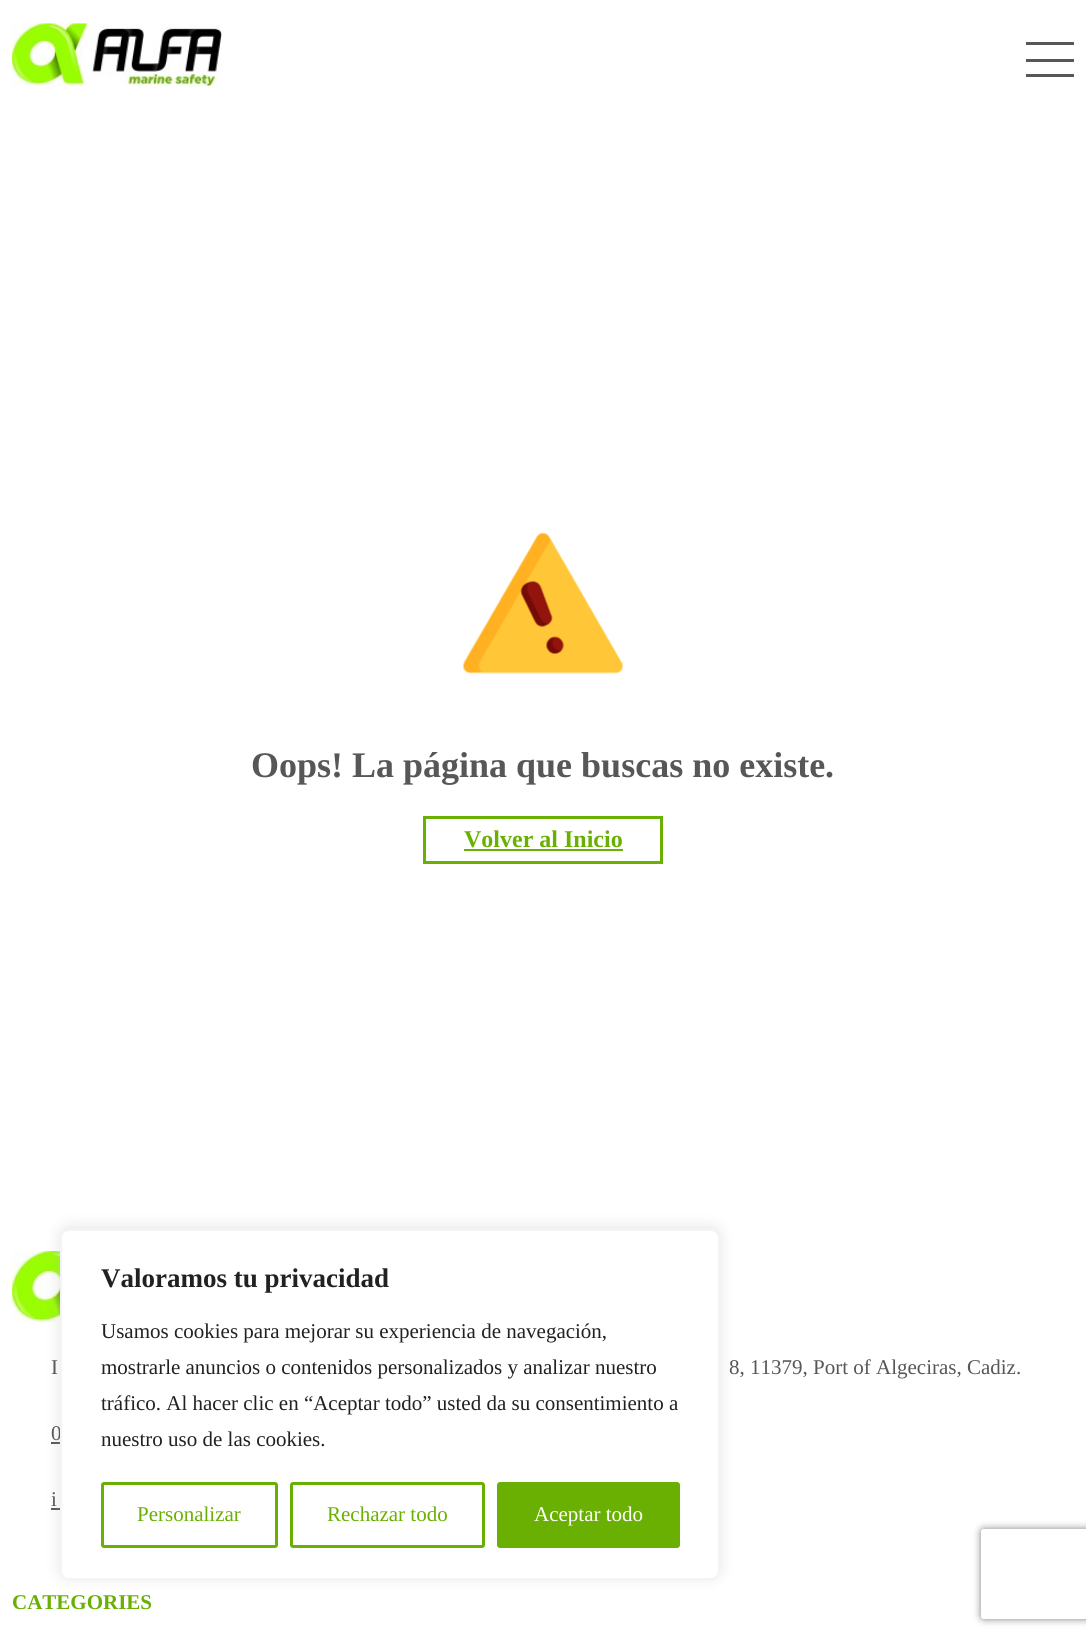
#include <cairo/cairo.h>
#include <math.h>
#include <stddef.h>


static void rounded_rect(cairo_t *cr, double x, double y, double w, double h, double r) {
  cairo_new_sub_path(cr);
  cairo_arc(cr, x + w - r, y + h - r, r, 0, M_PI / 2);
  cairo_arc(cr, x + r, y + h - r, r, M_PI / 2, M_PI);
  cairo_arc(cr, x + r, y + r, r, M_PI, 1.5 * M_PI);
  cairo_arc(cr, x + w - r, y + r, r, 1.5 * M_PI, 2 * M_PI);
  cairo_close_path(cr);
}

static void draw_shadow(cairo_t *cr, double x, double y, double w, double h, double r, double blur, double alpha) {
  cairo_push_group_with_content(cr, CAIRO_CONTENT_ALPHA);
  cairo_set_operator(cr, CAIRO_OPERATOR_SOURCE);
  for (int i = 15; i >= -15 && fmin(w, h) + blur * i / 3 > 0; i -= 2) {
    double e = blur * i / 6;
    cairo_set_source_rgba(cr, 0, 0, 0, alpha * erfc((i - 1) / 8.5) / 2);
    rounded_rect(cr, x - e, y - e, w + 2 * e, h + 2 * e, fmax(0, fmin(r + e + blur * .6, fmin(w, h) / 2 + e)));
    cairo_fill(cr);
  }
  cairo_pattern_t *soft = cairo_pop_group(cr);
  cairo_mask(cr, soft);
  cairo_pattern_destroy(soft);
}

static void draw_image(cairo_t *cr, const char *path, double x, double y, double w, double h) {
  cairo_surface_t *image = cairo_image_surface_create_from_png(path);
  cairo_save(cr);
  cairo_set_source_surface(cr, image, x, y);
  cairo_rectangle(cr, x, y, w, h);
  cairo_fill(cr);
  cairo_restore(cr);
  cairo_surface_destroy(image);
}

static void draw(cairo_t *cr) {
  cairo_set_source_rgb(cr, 1, 1, 1);
  cairo_paint(cr);
  draw_image(cr, "images/1.png", 12, 23, 210, 64);
  cairo_set_source_rgb(cr, 86 / 255.0, 87 / 255.0, 87 / 255.0);
  cairo_rectangle(cr, 1026, 42, 48, 3);
  cairo_fill(cr);
  cairo_rectangle(cr, 1026, 59, 48, 3);
  cairo_fill(cr);
  cairo_rectangle(cr, 1026, 74, 48, 3);
  cairo_fill(cr);
  draw_image(cr, "images/2.png", 463, 532, 160, 142);
  cairo_rectangle(cr, 424.5, 817.5, 237, 45);
  cairo_set_source_rgb(cr, 105 / 255.0, 176 / 255.0, 2 / 255.0);
  cairo_set_line_width(cr, 3);
  cairo_stroke(cr);
  cairo_rectangle(cr, 464, 849, 159, 2);
  cairo_fill(cr);
  draw_image(cr, "images/3.png", 12, 1251, 48, 72);
  cairo_set_source_rgb(cr, 86 / 255.0, 87 / 255.0, 87 / 255.0);
  cairo_rectangle(cr, 51, 1442, 9, 2);
  cairo_fill(cr);
  cairo_rectangle(cr, 51, 1508, 9, 2);
  cairo_fill(cr);
  cairo_set_source_rgb(cr, 172 / 255.0, 171 / 255.0, 171 / 255.0);
  draw_shadow(cr, 60, 1227, 660, 351, 9, 7.5, 0.3);
  cairo_save(cr);
  cairo_set_fill_rule(cr, CAIRO_FILL_RULE_EVEN_ODD);
  cairo_new_path(cr);
  cairo_move_to(cr, 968, 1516);
  cairo_line_to(cr, 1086, 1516);
  cairo_line_to(cr, 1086, 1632);
  cairo_line_to(cr, 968, 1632);
  cairo_close_path(cr);
  cairo_move_to(cr, 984, 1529);
  cairo_line_to(cr, 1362, 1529);
  cairo_curve_to(cr, 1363.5, 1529, 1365, 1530.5, 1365, 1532);
  cairo_line_to(cr, 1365, 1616);
  cairo_curve_to(cr, 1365, 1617.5, 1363.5, 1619, 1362, 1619);
  cairo_line_to(cr, 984, 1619);
  cairo_curve_to(cr, 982.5, 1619, 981, 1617.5, 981, 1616);
  cairo_line_to(cr, 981, 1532);
  cairo_curve_to(cr, 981, 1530.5, 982.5, 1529, 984, 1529);
  cairo_close_path(cr);
  cairo_clip(cr);
  cairo_set_source_rgb(cr, 128 / 255.0, 128 / 255.0, 128 / 255.0);
  draw_shadow(cr, 981, 1529, 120, 90, 3, 4, 1);
  cairo_restore(cr);
  cairo_select_font_face(cr, "Liberation Serif", CAIRO_FONT_SLANT_NORMAL, CAIRO_FONT_WEIGHT_BOLD);
  cairo_set_font_size(cr, 36);
  cairo_set_source_rgb(cr, 86 / 255.0, 87 / 255.0, 87 / 255.0);
  cairo_move_to(cr, 251, 777);
  cairo_show_text(cr, "Oops! La página que buscas no existe.");
  cairo_set_font_size(cr, 24);
  cairo_set_source_rgb(cr, 105 / 255.0, 176 / 255.0, 2 / 255.0);
  cairo_move_to(cr, 464, 847);
  cairo_show_text(cr, "Volver al Inicio");
  cairo_select_font_face(cr, "Liberation Serif", CAIRO_FONT_SLANT_NORMAL, CAIRO_FONT_WEIGHT_NORMAL);
  cairo_set_font_size(cr, 21);
  cairo_set_source_rgb(cr, 86 / 255.0, 87 / 255.0, 87 / 255.0);
  cairo_move_to(cr, 51, 1374);
  cairo_show_text(cr, "I");
  cairo_move_to(cr, 729, 1374);
  cairo_show_text(cr, "8, 11379, Port of Algeciras, Cadiz.");
  cairo_move_to(cr, 51, 1440);
  cairo_show_text(cr, "0");
  cairo_move_to(cr, 51, 1506);
  cairo_show_text(cr, "i");
  cairo_select_font_face(cr, "Liberation Serif", CAIRO_FONT_SLANT_NORMAL, CAIRO_FONT_WEIGHT_BOLD);
  cairo_set_source_rgb(cr, 105 / 255.0, 176 / 255.0, 2 / 255.0);
  cairo_move_to(cr, 12, 1609);
  cairo_show_text(cr, "CATEGORIES");
  cairo_set_source_rgb(cr, 1, 1, 1);
  rounded_rect(cr, 61, 1230, 658, 349, 8);
  cairo_fill_preserve(cr);
  cairo_set_source_rgb(cr, 244 / 255.0, 244 / 255.0, 244 / 255.0);
  cairo_set_line_width(cr, 2);
  cairo_stroke(cr);
  cairo_set_font_size(cr, 27);
  cairo_set_source_rgb(cr, 33 / 255.0, 33 / 255.0, 33 / 255.0);
  cairo_move_to(cr, 101, 1287);
  cairo_show_text(cr, "Valoramos tu privacidad");
  cairo_select_font_face(cr, "Liberation Serif", CAIRO_FONT_SLANT_NORMAL, CAIRO_FONT_WEIGHT_NORMAL);
  cairo_set_font_size(cr, 21);
  cairo_move_to(cr, 101, 1338);
  cairo_show_text(cr, "Usamos cookies para mejorar su experiencia de navegación,");
  cairo_move_to(cr, 101, 1374);
  cairo_show_text(cr, "mostrarle anuncios o contenidos personalizados y analizar nuestro");
  cairo_move_to(cr, 101, 1410);
  cairo_show_text(cr, "tráfico. Al hacer clic en “Aceptar todo” usted da su consentimiento a");
  cairo_move_to(cr, 101, 1446);
  cairo_show_text(cr, "nuestro uso de las cookies.");
  rounded_rect(cr, 102.5, 1483.5, 174, 63, 1.5);
  cairo_set_source_rgb(cr, 105 / 255.0, 176 / 255.0, 2 / 255.0);
  cairo_set_line_width(cr, 3);
  cairo_stroke(cr);
  cairo_move_to(cr, 137, 1521);
  cairo_show_text(cr, "Personalizar");
  rounded_rect(cr, 291.5, 1483.5, 192, 63, 1.5);
  cairo_stroke(cr);
  cairo_move_to(cr, 327, 1521);
  cairo_show_text(cr, "Rechazar todo");
  rounded_rect(cr, 498.5, 1483.5, 180, 63, 1.5);
  cairo_fill_preserve(cr);
  cairo_stroke(cr);
  cairo_set_source_rgb(cr, 1, 1, 1);
  cairo_move_to(cr, 534, 1521);
  cairo_show_text(cr, "Aceptar todo");
}

int main(void) {
  cairo_surface_t *surface = cairo_image_surface_create(CAIRO_FORMAT_RGB24, 1086, 1639);
  cairo_t *cr = cairo_create(surface);
  cairo_font_options_t *options = cairo_font_options_create();
  cairo_font_options_set_hint_metrics(options, CAIRO_HINT_METRICS_OFF);
  cairo_font_options_set_hint_style(options, CAIRO_HINT_STYLE_NONE);
  cairo_set_font_options(cr, options);
  cairo_set_miter_limit(cr, 4);
  draw(cr);
  cairo_surface_write_to_png(surface, "out.png");
  cairo_font_options_destroy(options);
  cairo_destroy(cr);
  cairo_surface_destroy(surface);
  return 0;
}
